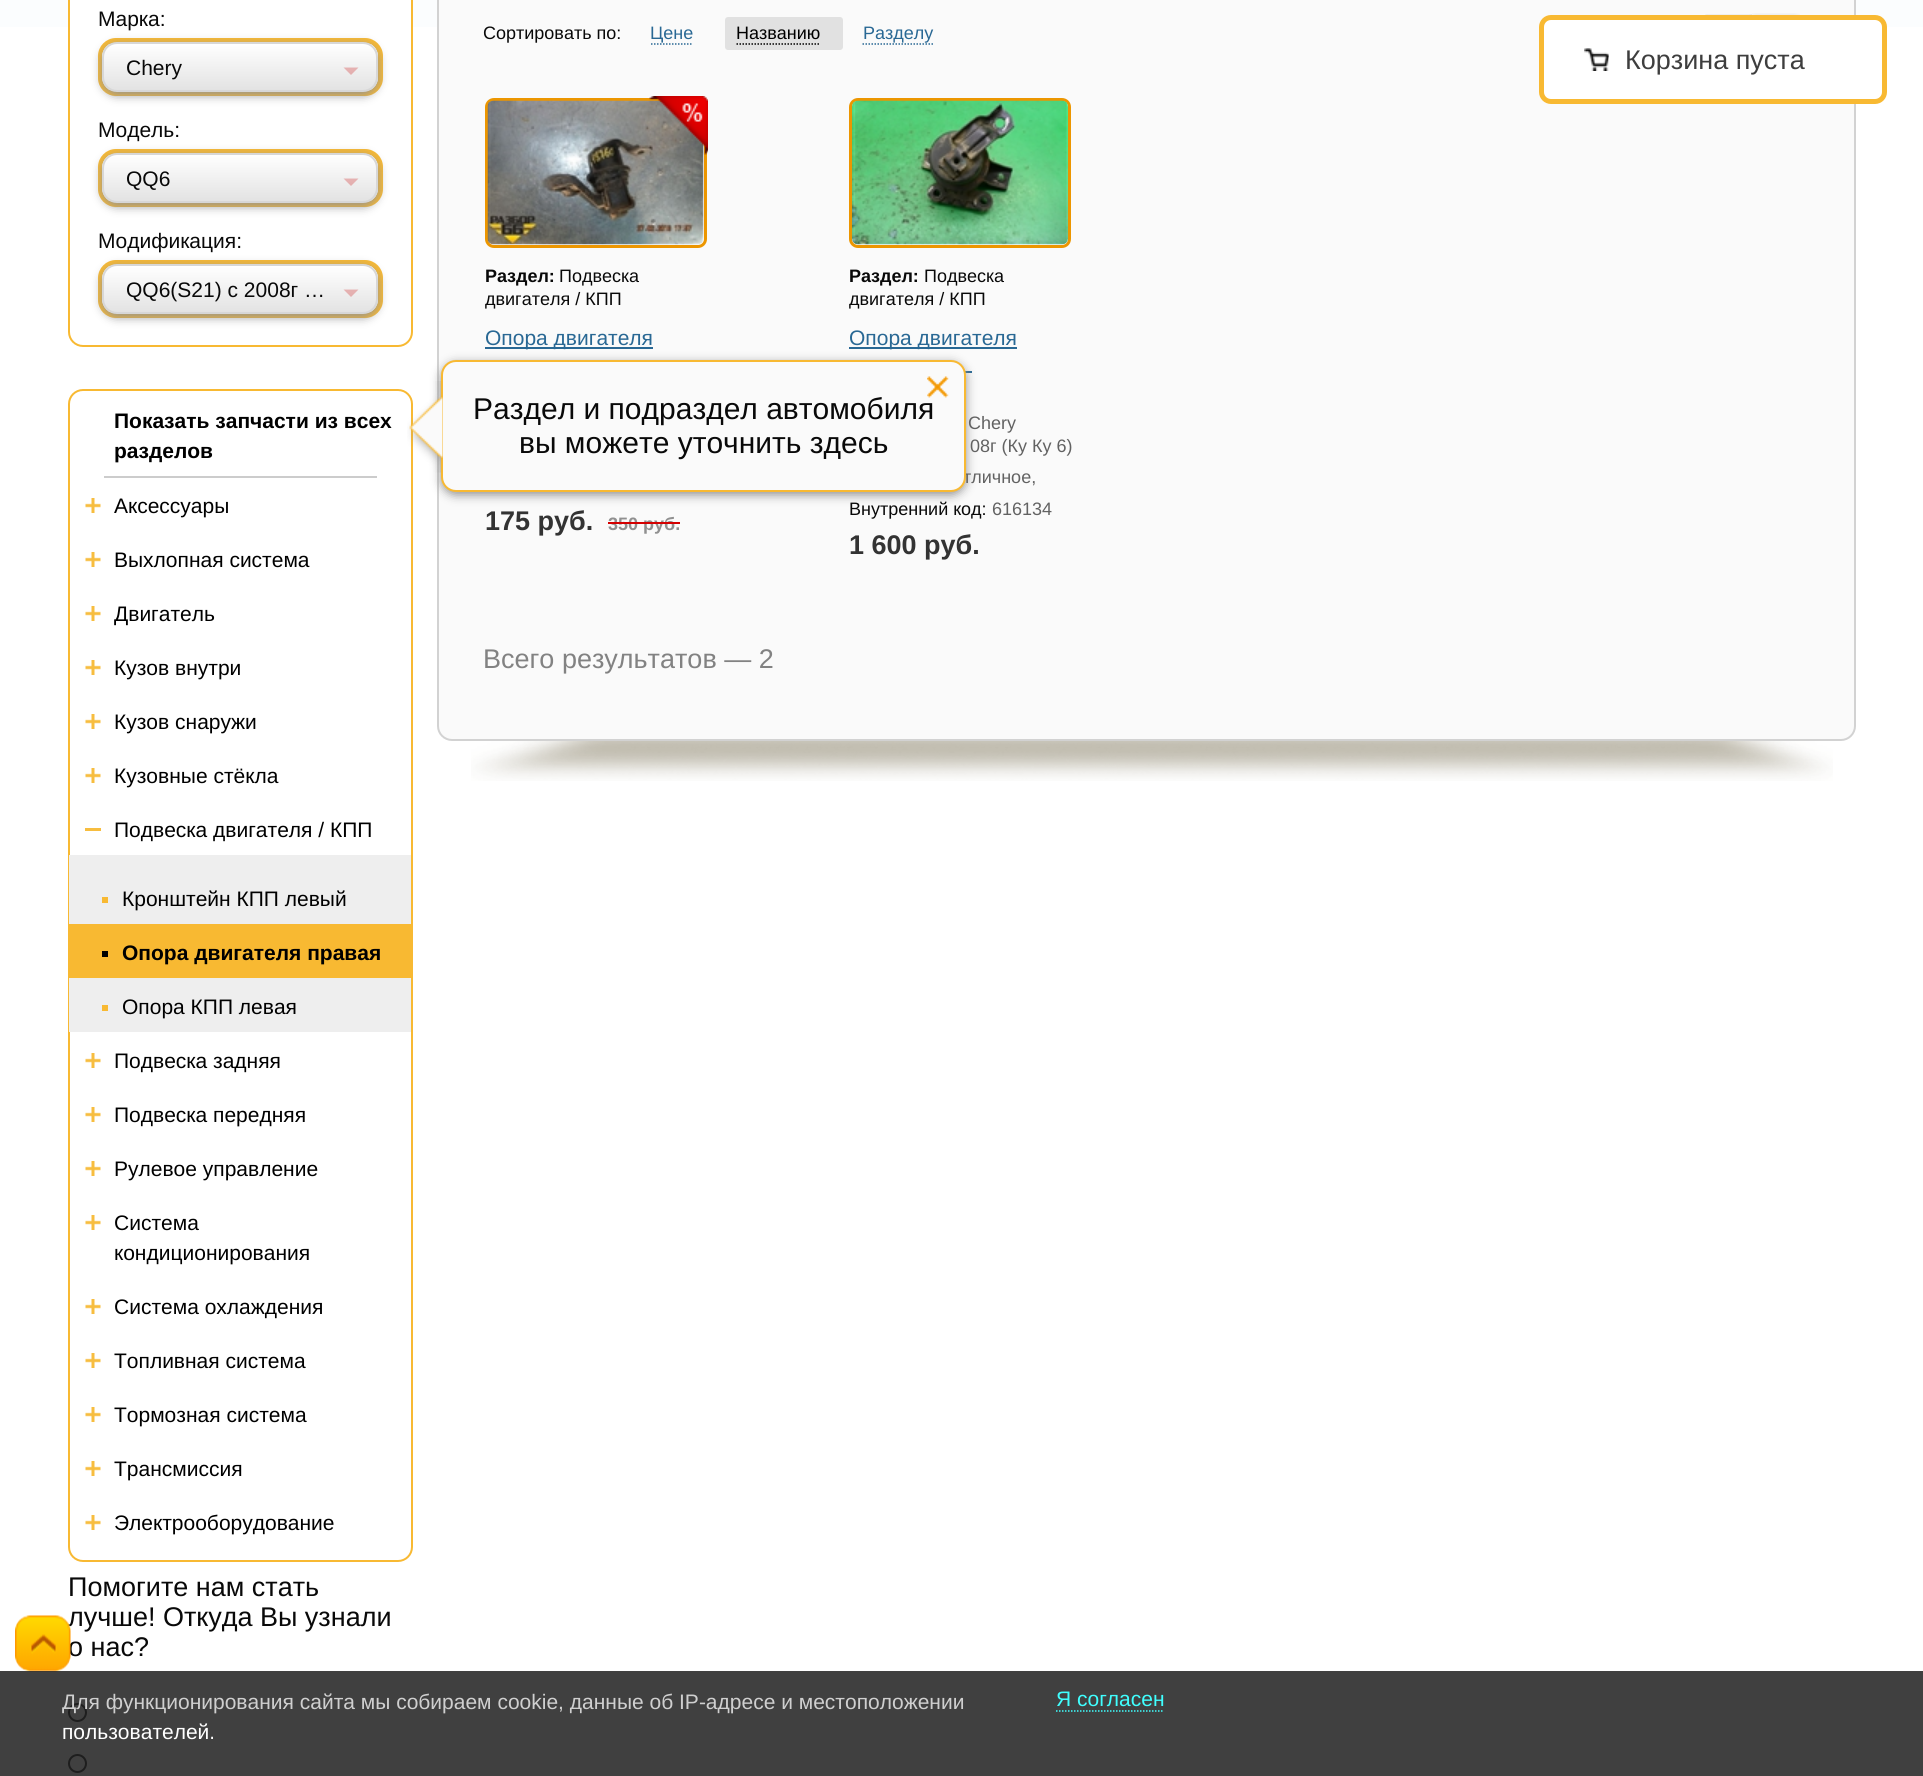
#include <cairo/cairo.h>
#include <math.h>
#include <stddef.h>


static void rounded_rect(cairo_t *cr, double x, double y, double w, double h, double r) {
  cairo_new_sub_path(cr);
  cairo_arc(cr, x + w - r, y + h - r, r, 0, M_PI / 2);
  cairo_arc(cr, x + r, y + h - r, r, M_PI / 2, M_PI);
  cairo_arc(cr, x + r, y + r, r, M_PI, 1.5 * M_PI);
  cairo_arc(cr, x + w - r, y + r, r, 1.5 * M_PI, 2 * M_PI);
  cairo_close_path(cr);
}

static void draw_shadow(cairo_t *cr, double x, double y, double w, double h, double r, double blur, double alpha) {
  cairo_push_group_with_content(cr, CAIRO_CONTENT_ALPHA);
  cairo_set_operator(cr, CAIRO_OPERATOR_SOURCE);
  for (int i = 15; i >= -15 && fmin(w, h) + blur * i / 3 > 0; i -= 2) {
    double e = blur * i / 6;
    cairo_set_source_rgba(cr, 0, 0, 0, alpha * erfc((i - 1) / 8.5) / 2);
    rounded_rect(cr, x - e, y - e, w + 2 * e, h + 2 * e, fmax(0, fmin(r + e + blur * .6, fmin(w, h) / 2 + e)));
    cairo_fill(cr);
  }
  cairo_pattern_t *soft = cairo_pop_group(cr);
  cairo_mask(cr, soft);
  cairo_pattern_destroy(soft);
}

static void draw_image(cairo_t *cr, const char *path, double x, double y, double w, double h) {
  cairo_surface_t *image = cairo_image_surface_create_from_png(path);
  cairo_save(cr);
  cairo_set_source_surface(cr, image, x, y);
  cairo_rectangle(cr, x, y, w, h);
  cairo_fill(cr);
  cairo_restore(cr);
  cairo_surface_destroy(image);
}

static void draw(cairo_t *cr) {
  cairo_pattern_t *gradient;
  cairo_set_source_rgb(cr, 1, 1, 1);
  cairo_paint(cr);
  cairo_set_source_rgb(cr, 251 / 255.0, 253 / 255.0, 254 / 255.0);
  cairo_rectangle(cr, 0, 0, 1923, 27);
  cairo_fill(cr);
  cairo_set_source_rgb(cr, 1, 1, 1);
  rounded_rect(cr, 69, -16, 343, 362, 14);
  cairo_fill_preserve(cr);
  cairo_set_source_rgb(cr, 248 / 255.0, 185 / 255.0, 50 / 255.0);
  cairo_stroke(cr);
  rounded_rect(cr, 100.5, 40.5, 280, 53, 15.5);
  cairo_set_line_width(cr, 5);
  cairo_stroke(cr);
  cairo_set_source_rgb(cr, 146 / 255.0, 146 / 255.0, 146 / 255.0);
  draw_shadow(cr, 102, 45, 276, 50, 15, 5, 1);
  cairo_save(cr);
  rounded_rect(cr, 102, 42, 276, 50, 15);
  cairo_clip(cr);
  gradient = cairo_pattern_create_linear(240, 43, 240, 90);
  cairo_pattern_add_color_stop_rgba(gradient, 0, 1, 1, 1, 1);
  cairo_pattern_add_color_stop_rgba(gradient, 1, 227 / 255.0, 227 / 255.0, 227 / 255.0, 1);
  cairo_set_source(cr, gradient);
  cairo_pattern_destroy(gradient);
  cairo_rectangle(cr, 102, 44, 276, 46);
  cairo_fill(cr);
  cairo_restore(cr);
  rounded_rect(cr, 103, 43, 274, 48, 14);
  cairo_set_source_rgb(cr, 215 / 255.0, 215 / 255.0, 215 / 255.0);
  cairo_set_line_width(cr, 2);
  cairo_stroke(cr);
  cairo_set_source_rgba(cr, 205 / 255.0, 32 / 255.0, 32 / 255.0, 0.3);
  cairo_new_path(cr);
  cairo_move_to(cr, 343.5, 67.5);
  cairo_line_to(cr, 358.5, 67.5);
  cairo_line_to(cr, 351, 75);
  cairo_close_path(cr);
  cairo_fill(cr);
  rounded_rect(cr, 100.5, 151.5, 280, 53, 15.5);
  cairo_set_source_rgb(cr, 248 / 255.0, 185 / 255.0, 50 / 255.0);
  cairo_set_line_width(cr, 5);
  cairo_stroke(cr);
  cairo_set_source_rgb(cr, 146 / 255.0, 146 / 255.0, 146 / 255.0);
  draw_shadow(cr, 102, 156, 276, 50, 15, 5, 1);
  cairo_save(cr);
  rounded_rect(cr, 102, 153, 276, 50, 15);
  cairo_clip(cr);
  gradient = cairo_pattern_create_linear(240, 154, 240, 201);
  cairo_pattern_add_color_stop_rgba(gradient, 0, 1, 1, 1, 1);
  cairo_pattern_add_color_stop_rgba(gradient, 1, 227 / 255.0, 227 / 255.0, 227 / 255.0, 1);
  cairo_set_source(cr, gradient);
  cairo_pattern_destroy(gradient);
  cairo_rectangle(cr, 102, 155, 276, 46);
  cairo_fill(cr);
  cairo_restore(cr);
  rounded_rect(cr, 103, 154, 274, 48, 14);
  cairo_set_source_rgb(cr, 215 / 255.0, 215 / 255.0, 215 / 255.0);
  cairo_set_line_width(cr, 2);
  cairo_stroke(cr);
  cairo_set_source_rgba(cr, 205 / 255.0, 32 / 255.0, 32 / 255.0, 0.3);
  cairo_new_path(cr);
  cairo_move_to(cr, 343.5, 178.5);
  cairo_line_to(cr, 358.5, 178.5);
  cairo_line_to(cr, 351, 186);
  cairo_close_path(cr);
  cairo_fill(cr);
  rounded_rect(cr, 100.5, 262.5, 280, 53, 15.5);
  cairo_set_source_rgb(cr, 248 / 255.0, 185 / 255.0, 50 / 255.0);
  cairo_set_line_width(cr, 5);
  cairo_stroke(cr);
  cairo_set_source_rgb(cr, 146 / 255.0, 146 / 255.0, 146 / 255.0);
  draw_shadow(cr, 102, 267, 276, 50, 15, 5, 1);
  cairo_save(cr);
  rounded_rect(cr, 102, 264, 276, 50, 15);
  cairo_clip(cr);
  gradient = cairo_pattern_create_linear(240, 266, 240, 312);
  cairo_pattern_add_color_stop_rgba(gradient, 0, 1, 1, 1, 1);
  cairo_pattern_add_color_stop_rgba(gradient, 1, 227 / 255.0, 227 / 255.0, 227 / 255.0, 1);
  cairo_set_source(cr, gradient);
  cairo_pattern_destroy(gradient);
  cairo_rectangle(cr, 102, 266, 276, 46);
  cairo_fill(cr);
  cairo_restore(cr);
  rounded_rect(cr, 103, 265, 274, 48, 14);
  cairo_set_source_rgb(cr, 215 / 255.0, 215 / 255.0, 215 / 255.0);
  cairo_set_line_width(cr, 2);
  cairo_stroke(cr);
  cairo_set_source_rgba(cr, 205 / 255.0, 32 / 255.0, 32 / 255.0, 0.3);
  cairo_new_path(cr);
  cairo_move_to(cr, 343.5, 289.5);
  cairo_line_to(cr, 358.5, 289.5);
  cairo_line_to(cr, 351, 297);
  cairo_close_path(cr);
  cairo_fill(cr);
  rounded_rect(cr, 69, 390, 343, 1171, 14);
  cairo_set_source_rgb(cr, 248 / 255.0, 185 / 255.0, 50 / 255.0);
  cairo_stroke(cr);
  cairo_set_source_rgb(cr, 204 / 255.0, 204 / 255.0, 204 / 255.0);
  cairo_rectangle(cr, 104, 476, 273, 2);
  cairo_fill(cr);
  draw_image(cr, "images/2.png", 85, 498, 16, 15);
  draw_image(cr, "images/2.png", 85, 552, 16, 15);
  draw_image(cr, "images/2.png", 85, 606, 16, 15);
  draw_image(cr, "images/2.png", 85, 660, 16, 15);
  draw_image(cr, "images/2.png", 85, 714, 16, 15);
  draw_image(cr, "images/2.png", 85, 768, 16, 15);
  cairo_set_source_rgb(cr, 247 / 255.0, 189 / 255.0, 63 / 255.0);
  cairo_rectangle(cr, 85, 828, 16, 3);
  cairo_fill(cr);
  cairo_set_source_rgb(cr, 238 / 255.0, 238 / 255.0, 238 / 255.0);
  cairo_rectangle(cr, 69, 855, 342, 177);
  cairo_fill(cr);
  cairo_set_source_rgb(cr, 248 / 255.0, 185 / 255.0, 50 / 255.0);
  cairo_rectangle(cr, 102, 897, 6, 6);
  cairo_fill(cr);
  cairo_rectangle(cr, 69, 924, 342, 54);
  cairo_fill(cr);
  cairo_set_source_rgb(cr, 0, 0, 0);
  cairo_rectangle(cr, 102, 951, 6, 6);
  cairo_fill(cr);
  cairo_set_source_rgb(cr, 248 / 255.0, 185 / 255.0, 50 / 255.0);
  cairo_rectangle(cr, 102, 1005, 6, 6);
  cairo_fill(cr);
  draw_image(cr, "images/2.png", 85, 1053, 16, 15);
  draw_image(cr, "images/2.png", 85, 1107, 16, 15);
  draw_image(cr, "images/2.png", 85, 1161, 16, 15);
  draw_image(cr, "images/2.png", 85, 1215, 16, 15);
  draw_image(cr, "images/2.png", 85, 1299, 16, 15);
  draw_image(cr, "images/2.png", 85, 1353, 16, 15);
  draw_image(cr, "images/2.png", 85, 1407, 16, 15);
  draw_image(cr, "images/2.png", 85, 1461, 16, 15);
  draw_image(cr, "images/2.png", 85, 1515, 16, 15);
  cairo_set_source_rgb(cr, 250 / 255.0, 250 / 255.0, 250 / 255.0);
  rounded_rect(cr, 438, -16, 1417, 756, 14);
  cairo_fill_preserve(cr);
  cairo_set_source_rgb(cr, 210 / 255.0, 210 / 255.0, 210 / 255.0);
  cairo_stroke(cr);
  cairo_set_source_rgb(cr, 41 / 255.0, 104 / 255.0, 148 / 255.0);
  cairo_rectangle(cr, 485, 347, 168, 2);
  cairo_fill(cr);
  cairo_rectangle(cr, 849, 347, 168, 2);
  cairo_fill(cr);
  cairo_rectangle(cr, 965, 371, 7, 2);
  cairo_fill(cr);
  cairo_set_source_rgb(cr, 146 / 255.0, 146 / 255.0, 146 / 255.0);
  draw_shadow(cr, 441, 363, 525, 132, 15, 5, 1);
  cairo_arc(cr, 77.5, 1712.5, 8.5, 0, 2 * M_PI);
  cairo_set_source_rgb(cr, 118 / 255.0, 118 / 255.0, 118 / 255.0);
  cairo_stroke(cr);
  cairo_arc(cr, 77.5, 1763.5, 8.5, 0, 2 * M_PI);
  cairo_stroke(cr);
  draw_image(cr, "images/5.png", 1705, 14, 47, 1);
  draw_image(cr, "images/6.png", 1752, 13, 48, 2);
  cairo_new_path(cr);
  cairo_move_to(cr, 651, 44);
  cairo_line_to(cr, 693, 44);
  cairo_set_source_rgb(cr, 41 / 255.0, 104 / 255.0, 148 / 255.0);
  cairo_set_line_width(cr, 1.5);
  cairo_set_dash(cr, (double[]){1.5, 1.5}, 2, 0);
  cairo_stroke(cr);
  cairo_set_source_rgb(cr, 225 / 255.0, 225 / 255.0, 225 / 255.0);
  rounded_rect(cr, 725, 17, 118, 33, 3);
  cairo_fill(cr);
  cairo_new_path(cr);
  cairo_move_to(cr, 736.5, 44);
  cairo_line_to(cr, 820.5, 44);
  cairo_set_source_rgb(cr, 0, 0, 0);
  cairo_stroke(cr);
  cairo_new_path(cr);
  cairo_move_to(cr, 862.5, 44);
  cairo_line_to(cr, 933, 44);
  cairo_set_source_rgb(cr, 41 / 255.0, 104 / 255.0, 148 / 255.0);
  cairo_stroke(cr);
  rounded_rect(cr, 486.5, 99.5, 219, 147, 7.5);
  cairo_set_source_rgb(cr, 236 / 255.0, 150 / 255.0, 0);
  cairo_set_line_width(cr, 3);
  cairo_set_dash(cr, NULL, 0, 0);
  cairo_stroke(cr);
  draw_image(cr, "images/8.png", 487, 100, 217, 145);
  draw_image(cr, "images/7.png", 649, 96, 59, 59);
  rounded_rect(cr, 850.5, 99.5, 219, 147, 7.5);
  cairo_stroke(cr);
  draw_image(cr, "images/9.png", 852, 100, 216, 145);
  draw_image(cr, "images/10.png", 471, 741, 1362, 40);
  cairo_set_source_rgb(cr, 1, 1, 1);
  rounded_rect(cr, 1541.5, 17.5, 343, 84, 9.5);
  cairo_fill_preserve(cr);
  cairo_set_source_rgb(cr, 248 / 255.0, 185 / 255.0, 50 / 255.0);
  cairo_set_line_width(cr, 5);
  cairo_stroke(cr);
  draw_image(cr, "images/11.png", 1584, 48, 25, 23);
  cairo_select_font_face(cr, "Liberation Sans", CAIRO_FONT_SLANT_NORMAL, CAIRO_FONT_WEIGHT_NORMAL);
  cairo_set_font_size(cr, 21);
  cairo_set_source_rgb(cr, 9 / 255.0, 9 / 255.0, 9 / 255.0);
  cairo_move_to(cr, 98, 26);
  cairo_show_text(cr, "Марка:");
  cairo_move_to(cr, 126, 75);
  cairo_show_text(cr, "Chery");
  cairo_move_to(cr, 98, 137);
  cairo_show_text(cr, "Модель:");
  cairo_move_to(cr, 126, 186);
  cairo_show_text(cr, "QQ6");
  cairo_move_to(cr, 98, 248);
  cairo_show_text(cr, "Модификация:");
  cairo_move_to(cr, 126, 297);
  cairo_show_text(cr, "QQ6(S21) с 2008г …");
  cairo_select_font_face(cr, "Liberation Sans", CAIRO_FONT_SLANT_NORMAL, CAIRO_FONT_WEIGHT_BOLD);
  cairo_set_source_rgb(cr, 0, 0, 0);
  cairo_move_to(cr, 114, 428);
  cairo_show_text(cr, "Показать запчасти из всех");
  cairo_move_to(cr, 114, 458);
  cairo_show_text(cr, "разделов");
  cairo_select_font_face(cr, "Liberation Sans", CAIRO_FONT_SLANT_NORMAL, CAIRO_FONT_WEIGHT_NORMAL);
  cairo_move_to(cr, 114, 513);
  cairo_show_text(cr, "Аксессуары");
  cairo_move_to(cr, 114, 567);
  cairo_show_text(cr, "Выхлопная система");
  cairo_move_to(cr, 114, 621);
  cairo_show_text(cr, "Двигатель");
  cairo_move_to(cr, 114, 675);
  cairo_show_text(cr, "Кузов внутри");
  cairo_move_to(cr, 114, 729);
  cairo_show_text(cr, "Кузов снаружи");
  cairo_move_to(cr, 114, 783);
  cairo_show_text(cr, "Кузовные стёкла");
  cairo_move_to(cr, 114, 837);
  cairo_show_text(cr, "Подвеска двигателя / КПП");
  cairo_move_to(cr, 122, 906);
  cairo_show_text(cr, "Кронштейн КПП левый");
  cairo_select_font_face(cr, "Liberation Sans", CAIRO_FONT_SLANT_NORMAL, CAIRO_FONT_WEIGHT_BOLD);
  cairo_move_to(cr, 122, 960);
  cairo_show_text(cr, "Опора двигателя правая");
  cairo_select_font_face(cr, "Liberation Sans", CAIRO_FONT_SLANT_NORMAL, CAIRO_FONT_WEIGHT_NORMAL);
  cairo_move_to(cr, 122, 1014);
  cairo_show_text(cr, "Опора КПП левая");
  cairo_move_to(cr, 114, 1068);
  cairo_show_text(cr, "Подвеска задняя");
  cairo_move_to(cr, 114, 1122);
  cairo_show_text(cr, "Подвеска передняя");
  cairo_move_to(cr, 114, 1176);
  cairo_show_text(cr, "Рулевое управление");
  cairo_move_to(cr, 114, 1230);
  cairo_show_text(cr, "Система");
  cairo_move_to(cr, 114, 1260);
  cairo_show_text(cr, "кондиционирования");
  cairo_move_to(cr, 114, 1314);
  cairo_show_text(cr, "Система охлаждения");
  cairo_move_to(cr, 114, 1368);
  cairo_show_text(cr, "Топливная система");
  cairo_move_to(cr, 114, 1422);
  cairo_show_text(cr, "Тормозная система");
  cairo_move_to(cr, 114, 1476);
  cairo_show_text(cr, "Трансмиссия");
  cairo_move_to(cr, 114, 1530);
  cairo_show_text(cr, "Электрооборудование");
  cairo_set_font_size(cr, 27);
  cairo_set_source_rgb(cr, 9 / 255.0, 9 / 255.0, 9 / 255.0);
  cairo_move_to(cr, 68, 1596);
  cairo_show_text(cr, "Помогите нам стать");
  cairo_move_to(cr, 68, 1626);
  cairo_show_text(cr, "лучше! Откуда Вы узнали");
  cairo_move_to(cr, 68, 1656);
  cairo_show_text(cr, "о нас?");
  draw_image(cr, "images/1.png", 15, 1615, 56, 57);
  cairo_set_font_size(cr, 18);
  cairo_move_to(cr, 483, 39);
  cairo_show_text(cr, "Сортировать по:");
  cairo_set_source_rgb(cr, 41 / 255.0, 104 / 255.0, 148 / 255.0);
  cairo_move_to(cr, 650, 39);
  cairo_show_text(cr, "Цене");
  cairo_set_source_rgb(cr, 0, 0, 0);
  cairo_move_to(cr, 736, 39);
  cairo_show_text(cr, "Названию");
  cairo_set_source_rgb(cr, 41 / 255.0, 104 / 255.0, 148 / 255.0);
  cairo_move_to(cr, 863, 39);
  cairo_show_text(cr, "Разделу");
  cairo_select_font_face(cr, "Liberation Sans", CAIRO_FONT_SLANT_NORMAL, CAIRO_FONT_WEIGHT_BOLD);
  cairo_set_source_rgb(cr, 9 / 255.0, 9 / 255.0, 9 / 255.0);
  cairo_move_to(cr, 485, 282);
  cairo_show_text(cr, "Раздел:");
  cairo_select_font_face(cr, "Liberation Sans", CAIRO_FONT_SLANT_NORMAL, CAIRO_FONT_WEIGHT_NORMAL);
  cairo_move_to(cr, 559, 282);
  cairo_show_text(cr, "Подвеска");
  cairo_move_to(cr, 485, 305);
  cairo_show_text(cr, "двигателя / КПП");
  cairo_set_font_size(cr, 21);
  cairo_set_source_rgb(cr, 41 / 255.0, 104 / 255.0, 148 / 255.0);
  cairo_move_to(cr, 485, 345);
  cairo_show_text(cr, "Опора двигателя");
  cairo_select_font_face(cr, "Liberation Sans", CAIRO_FONT_SLANT_NORMAL, CAIRO_FONT_WEIGHT_BOLD);
  cairo_set_font_size(cr, 27);
  cairo_set_source_rgb(cr, 51 / 255.0, 51 / 255.0, 51 / 255.0);
  cairo_move_to(cr, 485, 530);
  cairo_show_text(cr, "175 руб.");
  cairo_set_font_size(cr, 18);
  cairo_set_source_rgb(cr, 144 / 255.0, 144 / 255.0, 144 / 255.0);
  cairo_move_to(cr, 608, 530);
  cairo_show_text(cr, "350 руб.");
  cairo_set_source_rgb(cr, 212 / 255.0, 0, 0);
  cairo_rectangle(cr, 608, 522, 72, 2);
  cairo_fill(cr);
  cairo_set_source_rgb(cr, 9 / 255.0, 9 / 255.0, 9 / 255.0);
  cairo_move_to(cr, 849, 282);
  cairo_show_text(cr, "Раздел:");
  cairo_select_font_face(cr, "Liberation Sans", CAIRO_FONT_SLANT_NORMAL, CAIRO_FONT_WEIGHT_NORMAL);
  cairo_move_to(cr, 924, 282);
  cairo_show_text(cr, "Подвеска");
  cairo_move_to(cr, 849, 305);
  cairo_show_text(cr, "двигателя / КПП");
  cairo_set_font_size(cr, 21);
  cairo_set_source_rgb(cr, 41 / 255.0, 104 / 255.0, 148 / 255.0);
  cairo_move_to(cr, 849, 345);
  cairo_show_text(cr, "Опора двигателя");
  cairo_set_font_size(cr, 18);
  cairo_set_source_rgb(cr, 98 / 255.0, 98 / 255.0, 98 / 255.0);
  cairo_move_to(cr, 968, 429);
  cairo_show_text(cr, "Chery");
  cairo_move_to(cr, 970, 452);
  cairo_show_text(cr, "08г (Ку Ку 6)");
  cairo_move_to(cr, 963, 483);
  cairo_show_text(cr, "тличное,");
  cairo_set_source_rgb(cr, 250 / 255.0, 250 / 255.0, 250 / 255.0);
  rounded_rect(cr, 442, 361, 523, 130, 14);
  cairo_fill_preserve(cr);
  cairo_set_source_rgb(cr, 248 / 255.0, 185 / 255.0, 50 / 255.0);
  cairo_set_line_width(cr, 2);
  cairo_stroke(cr);
  cairo_set_font_size(cr, 30);
  cairo_set_source_rgb(cr, 9 / 255.0, 9 / 255.0, 9 / 255.0);
  cairo_move_to(cr, 473, 419);
  cairo_show_text(cr, "Раздел и подраздел автомобиля");
  draw_image(cr, "images/4.png", 927, 376, 22, 22);
  draw_image(cr, "images/3.png", 407, 381, 36, 92);
  cairo_move_to(cr, 519, 453);
  cairo_show_text(cr, "вы можете уточнить здесь");
  cairo_set_font_size(cr, 18);
  cairo_move_to(cr, 849, 515);
  cairo_show_text(cr, "Внутренний код:");
  cairo_set_source_rgb(cr, 98 / 255.0, 98 / 255.0, 98 / 255.0);
  cairo_move_to(cr, 992, 515);
  cairo_show_text(cr, "616134");
  cairo_select_font_face(cr, "Liberation Sans", CAIRO_FONT_SLANT_NORMAL, CAIRO_FONT_WEIGHT_BOLD);
  cairo_set_font_size(cr, 27);
  cairo_set_source_rgb(cr, 51 / 255.0, 51 / 255.0, 51 / 255.0);
  cairo_move_to(cr, 849, 554);
  cairo_show_text(cr, "1 600 руб.");
  cairo_select_font_face(cr, "Liberation Sans", CAIRO_FONT_SLANT_NORMAL, CAIRO_FONT_WEIGHT_NORMAL);
  cairo_set_source_rgb(cr, 130 / 255.0, 130 / 255.0, 130 / 255.0);
  cairo_move_to(cr, 483, 668);
  cairo_show_text(cr, "Всего результатов — 2");
  cairo_set_source_rgb(cr, 62 / 255.0, 62 / 255.0, 62 / 255.0);
  cairo_move_to(cr, 1625, 69);
  cairo_show_text(cr, "Корзина пуста");
  cairo_set_source_rgba(cr, 0, 0, 0, 0.75);
  cairo_rectangle(cr, 0, 1671, 1923, 105);
  cairo_fill(cr);
  cairo_set_font_size(cr, 21);
  cairo_set_source_rgb(cr, 207 / 255.0, 207 / 255.0, 207 / 255.0);
  cairo_move_to(cr, 62, 1709);
  cairo_show_text(cr, "Для функционирования сайта мы собираем cookie, данные об IP-адресе и местоположении");
  cairo_set_source_rgb(cr, 1, 1, 1);
  cairo_move_to(cr, 62, 1739);
  cairo_show_text(cr, "пользователей.");
  cairo_new_path(cr);
  cairo_move_to(cr, 1056, 1711);
  cairo_line_to(cr, 1164, 1711);
  cairo_set_source_rgb(cr, 64 / 255.0, 1, 1);
  cairo_set_line_width(cr, 1.5);
  cairo_set_dash(cr, (double[]){1.5, 1.5}, 2, 0);
  cairo_stroke(cr);
  cairo_move_to(cr, 1056, 1706);
  cairo_show_text(cr, "Я согласен");
}

int main(void) {
  cairo_surface_t *surface = cairo_image_surface_create(CAIRO_FORMAT_RGB24, 1923, 1776);
  cairo_t *cr = cairo_create(surface);
  cairo_font_options_t *options = cairo_font_options_create();
  cairo_font_options_set_hint_metrics(options, CAIRO_HINT_METRICS_OFF);
  cairo_font_options_set_hint_style(options, CAIRO_HINT_STYLE_NONE);
  cairo_set_font_options(cr, options);
  cairo_set_miter_limit(cr, 4);
  draw(cr);
  cairo_surface_write_to_png(surface, "out.png");
  cairo_font_options_destroy(options);
  cairo_destroy(cr);
  cairo_surface_destroy(surface);
  return 0;
}
